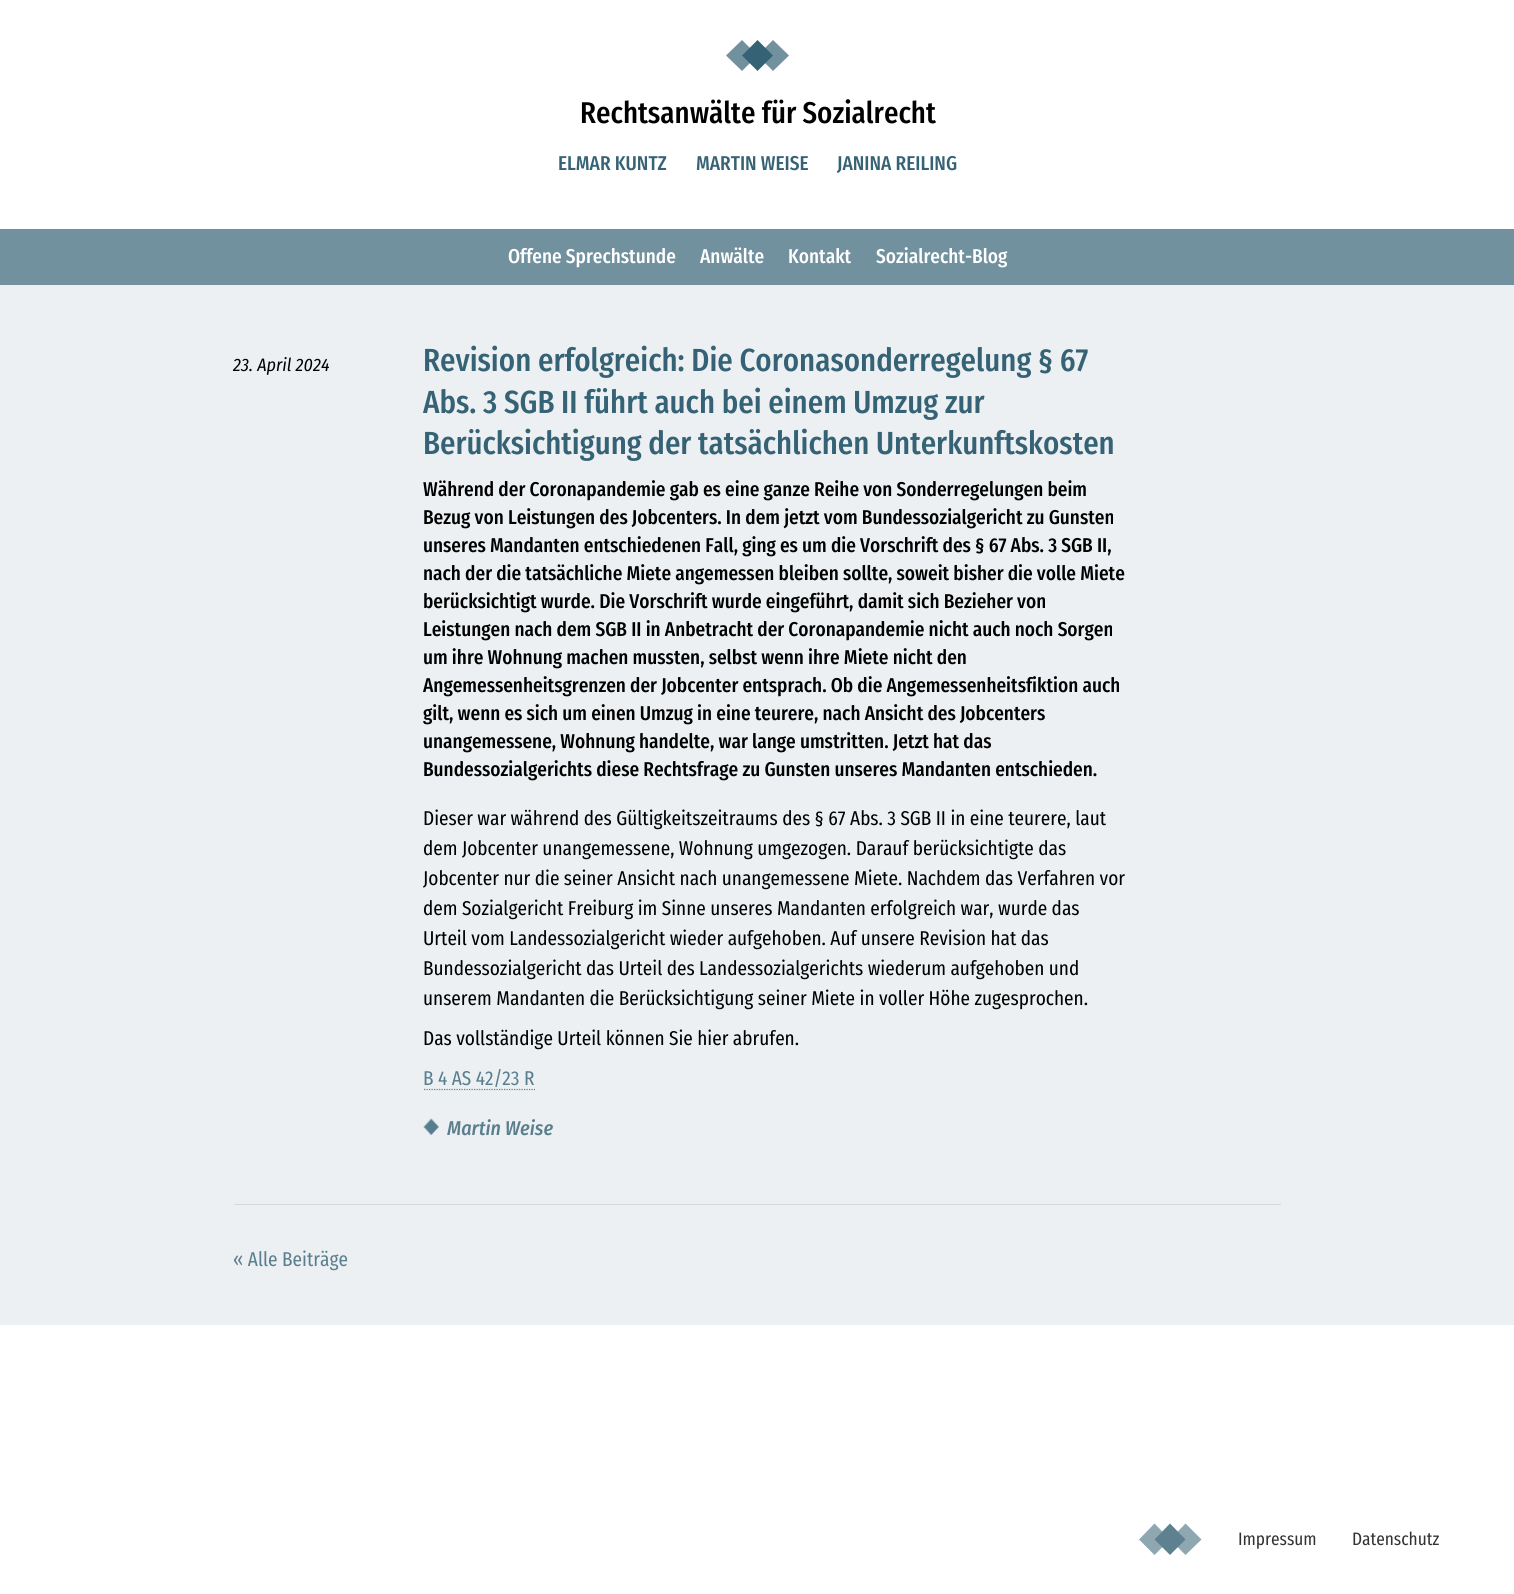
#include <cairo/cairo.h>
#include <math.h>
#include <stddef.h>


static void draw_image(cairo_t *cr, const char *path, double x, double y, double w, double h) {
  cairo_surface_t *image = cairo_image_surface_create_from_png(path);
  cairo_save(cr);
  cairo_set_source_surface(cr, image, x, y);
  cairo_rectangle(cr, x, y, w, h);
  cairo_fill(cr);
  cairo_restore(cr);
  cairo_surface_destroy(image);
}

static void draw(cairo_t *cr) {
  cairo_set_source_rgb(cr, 1, 1, 1);
  cairo_paint(cr);
  cairo_set_source_rgb(cr, 114 / 255.0, 145 / 255.0, 158 / 255.0);
  cairo_new_path(cr);
  cairo_move_to(cr, 742, 71);
  cairo_line_to(cr, 726, 55.5);
  cairo_line_to(cr, 742, 40);
  cairo_line_to(cr, 757.5, 55.5);
  cairo_line_to(cr, 742, 71);
  cairo_fill(cr);
  cairo_new_path(cr);
  cairo_move_to(cr, 773, 71);
  cairo_line_to(cr, 757.5, 55.5);
  cairo_line_to(cr, 773, 40);
  cairo_line_to(cr, 789, 55.5);
  cairo_line_to(cr, 773, 71);
  cairo_fill(cr);
  cairo_set_source_rgb(cr, 53 / 255.0, 98 / 255.0, 117 / 255.0);
  cairo_new_path(cr);
  cairo_move_to(cr, 757.5, 71);
  cairo_line_to(cr, 742, 55.5);
  cairo_line_to(cr, 757.5, 40);
  cairo_line_to(cr, 773, 55.5);
  cairo_line_to(cr, 757.5, 71);
  cairo_fill(cr);
  cairo_set_source_rgb(cr, 114 / 255.0, 145 / 255.0, 158 / 255.0);
  cairo_rectangle(cr, 0, 229, 1514, 56);
  cairo_fill(cr);
  cairo_set_source_rgb(cr, 236 / 255.0, 240 / 255.0, 242 / 255.0);
  cairo_rectangle(cr, 0, 285, 1514, 1040);
  cairo_fill(cr);
  cairo_new_path(cr);
  cairo_move_to(cr, 424, 1089.5);
  cairo_line_to(cr, 535, 1089.5);
  cairo_set_source_rgb(cr, 90 / 255.0, 126 / 255.0, 142 / 255.0);
  cairo_set_line_width(cr, 1.2);
  cairo_set_dash(cr, (double[]){1.25, 1.25}, 2, 0);
  cairo_stroke(cr);
  draw_image(cr, "images/1.png", 423, 1118, 16, 17);
  cairo_set_source_rgb(cr, 212 / 255.0, 216 / 255.0, 218 / 255.0);
  cairo_rectangle(cr, 234, 1204, 1047, 1);
  cairo_fill(cr);
  cairo_set_source_rgb(cr, 142 / 255.0, 167 / 255.0, 177 / 255.0);
  cairo_new_path(cr);
  cairo_move_to(cr, 1154.5, 1555);
  cairo_line_to(cr, 1139, 1539.5);
  cairo_line_to(cr, 1154.5, 1523.5);
  cairo_line_to(cr, 1170, 1539.5);
  cairo_line_to(cr, 1154.5, 1555);
  cairo_move_to(cr, 1185.5, 1555);
  cairo_line_to(cr, 1170, 1539.5);
  cairo_line_to(cr, 1185.5, 1523.5);
  cairo_line_to(cr, 1201.5, 1539.5);
  cairo_line_to(cr, 1185.5, 1555);
  cairo_fill(cr);
  cairo_set_source_rgb(cr, 93 / 255.0, 129 / 255.0, 145 / 255.0);
  cairo_new_path(cr);
  cairo_move_to(cr, 1170, 1555);
  cairo_line_to(cr, 1154.5, 1539.5);
  cairo_line_to(cr, 1170, 1523.5);
  cairo_line_to(cr, 1185.5, 1539.5);
  cairo_line_to(cr, 1170, 1555);
  cairo_fill(cr);
  cairo_select_font_face(cr, "Fira Sans Condensed Medium", CAIRO_FONT_SLANT_NORMAL, CAIRO_FONT_WEIGHT_NORMAL);
  cairo_set_font_size(cr, 30);
  cairo_set_source_rgb(cr, 0, 0, 0);
  cairo_move_to(cr, 580, 123);
  cairo_show_text(cr, "Rechtsanwälte für Sozialrecht");
  cairo_set_font_size(cr, 20);
  cairo_set_source_rgb(cr, 53 / 255.0, 98 / 255.0, 117 / 255.0);
  cairo_move_to(cr, 558, 170);
  cairo_show_text(cr, "ELMAR KUNTZ");
  cairo_move_to(cr, 696, 170);
  cairo_show_text(cr, "MARTIN WEISE");
  cairo_move_to(cr, 837, 170);
  cairo_show_text(cr, "JANINA REILING");
  cairo_set_source_rgb(cr, 1, 1, 1);
  cairo_move_to(cr, 508, 263);
  cairo_show_text(cr, "Offene Sprechstunde");
  cairo_move_to(cr, 700, 263);
  cairo_show_text(cr, "Anwälte");
  cairo_move_to(cr, 788, 263);
  cairo_show_text(cr, "Kontakt");
  cairo_move_to(cr, 876, 263);
  cairo_show_text(cr, "Sozialrecht-Blog");
  cairo_select_font_face(cr, "Fira Sans Condensed", CAIRO_FONT_SLANT_ITALIC, CAIRO_FONT_WEIGHT_NORMAL);
  cairo_set_font_size(cr, 18);
  cairo_set_source_rgb(cr, 0, 0, 0);
  cairo_move_to(cr, 233, 371);
  cairo_show_text(cr, "23. April 2024");
  cairo_select_font_face(cr, "Fira Sans Condensed Medium", CAIRO_FONT_SLANT_NORMAL, CAIRO_FONT_WEIGHT_NORMAL);
  cairo_set_font_size(cr, 32);
  cairo_set_source_rgb(cr, 53 / 255.0, 98 / 255.0, 117 / 255.0);
  cairo_move_to(cr, 423, 371);
  cairo_show_text(cr, "Revision erfolgreich: Die Coronasonderregelung § 67");
  cairo_move_to(cr, 423, 413);
  cairo_show_text(cr, "Abs. 3 SGB II führt auch bei einem Umzug zur");
  cairo_move_to(cr, 423, 454);
  cairo_show_text(cr, "Berücksichtigung der tatsächlichen Unterkunftskosten");
  cairo_set_font_size(cr, 20);
  cairo_set_source_rgb(cr, 0, 0, 0);
  cairo_move_to(cr, 423, 496);
  cairo_show_text(cr, "Während der Coronapandemie gab es eine ganze Reihe von Sonderregelungen beim");
  cairo_move_to(cr, 423, 524);
  cairo_show_text(cr, "Bezug von Leistungen des Jobcenters. In dem jetzt vom Bundessozialgericht zu Gunsten");
  cairo_move_to(cr, 423, 552);
  cairo_show_text(cr, "unseres Mandanten entschiedenen Fall, ging es um die Vorschrift des § 67 Abs. 3 SGB II,");
  cairo_move_to(cr, 423, 580);
  cairo_show_text(cr, "nach der die tatsächliche Miete angemessen bleiben sollte, soweit bisher die volle Miete");
  cairo_move_to(cr, 423, 608);
  cairo_show_text(cr, "berücksichtigt wurde. Die Vorschrift wurde eingeführt, damit sich Bezieher von");
  cairo_move_to(cr, 423, 636);
  cairo_show_text(cr, "Leistungen nach dem SGB II in Anbetracht der Coronapandemie nicht auch noch Sorgen");
  cairo_move_to(cr, 423, 664);
  cairo_show_text(cr, "um ihre Wohnung machen mussten, selbst wenn ihre Miete nicht den");
  cairo_move_to(cr, 423, 692);
  cairo_show_text(cr, "Angemessenheitsgrenzen der Jobcenter entsprach. Ob die Angemessenheitsfiktion auch");
  cairo_move_to(cr, 423, 720);
  cairo_show_text(cr, "gilt, wenn es sich um einen Umzug in eine teurere, nach Ansicht des Jobcenters");
  cairo_move_to(cr, 423, 748);
  cairo_show_text(cr, "unangemessene, Wohnung handelte, war lange umstritten. Jetzt hat das");
  cairo_move_to(cr, 423, 776);
  cairo_show_text(cr, "Bundessozialgerichts diese Rechtsfrage zu Gunsten unseres Mandanten entschieden.");
  cairo_select_font_face(cr, "Fira Sans Condensed", CAIRO_FONT_SLANT_NORMAL, CAIRO_FONT_WEIGHT_NORMAL);
  cairo_move_to(cr, 423, 825);
  cairo_show_text(cr, "Dieser war während des Gültigkeitszeitraums des § 67 Abs. 3 SGB II in eine teurere, laut");
  cairo_move_to(cr, 423, 855);
  cairo_show_text(cr, "dem Jobcenter unangemessene, Wohnung umgezogen. Darauf berücksichtigte das");
  cairo_move_to(cr, 423, 885);
  cairo_show_text(cr, "Jobcenter nur die seiner Ansicht nach unangemessene Miete. Nachdem das Verfahren vor");
  cairo_move_to(cr, 423, 915);
  cairo_show_text(cr, "dem Sozialgericht Freiburg im Sinne unseres Mandanten erfolgreich war, wurde das");
  cairo_move_to(cr, 423, 945);
  cairo_show_text(cr, "Urteil vom Landessozialgericht wieder aufgehoben. Auf unsere Revision hat das");
  cairo_move_to(cr, 423, 975);
  cairo_show_text(cr, "Bundessozialgericht das Urteil des Landessozialgerichts wiederum aufgehoben und");
  cairo_move_to(cr, 423, 1005);
  cairo_show_text(cr, "unserem Mandanten die Berücksichtigung seiner Miete in voller Höhe zugesprochen.");
  cairo_move_to(cr, 423, 1045);
  cairo_show_text(cr, "Das vollständige Urteil können Sie hier abrufen.");
  cairo_set_source_rgb(cr, 90 / 255.0, 126 / 255.0, 142 / 255.0);
  cairo_move_to(cr, 423, 1085);
  cairo_show_text(cr, "B 4 AS 42/23 R");
  cairo_select_font_face(cr, "Fira Sans Condensed Medium", CAIRO_FONT_SLANT_ITALIC, CAIRO_FONT_WEIGHT_NORMAL);
  cairo_move_to(cr, 447, 1135);
  cairo_show_text(cr, "Martin Weise");
  cairo_select_font_face(cr, "Fira Sans Condensed", CAIRO_FONT_SLANT_NORMAL, CAIRO_FONT_WEIGHT_NORMAL);
  cairo_move_to(cr, 233, 1266);
  cairo_show_text(cr, "« Alle Beiträge");
  cairo_set_font_size(cr, 18);
  cairo_set_source_rgb(cr, 51 / 255.0, 51 / 255.0, 51 / 255.0);
  cairo_move_to(cr, 1238, 1545);
  cairo_show_text(cr, "Impressum");
  cairo_move_to(cr, 1352, 1545);
  cairo_show_text(cr, "Datenschutz");
}

int main(void) {
  cairo_surface_t *surface = cairo_image_surface_create(CAIRO_FORMAT_RGB24, 1514, 1594);
  cairo_t *cr = cairo_create(surface);
  cairo_font_options_t *options = cairo_font_options_create();
  cairo_font_options_set_hint_metrics(options, CAIRO_HINT_METRICS_OFF);
  cairo_font_options_set_hint_style(options, CAIRO_HINT_STYLE_NONE);
  cairo_set_font_options(cr, options);
  cairo_set_miter_limit(cr, 4);
  draw(cr);
  cairo_surface_write_to_png(surface, "out.png");
  cairo_font_options_destroy(options);
  cairo_destroy(cr);
  cairo_surface_destroy(surface);
  return 0;
}
